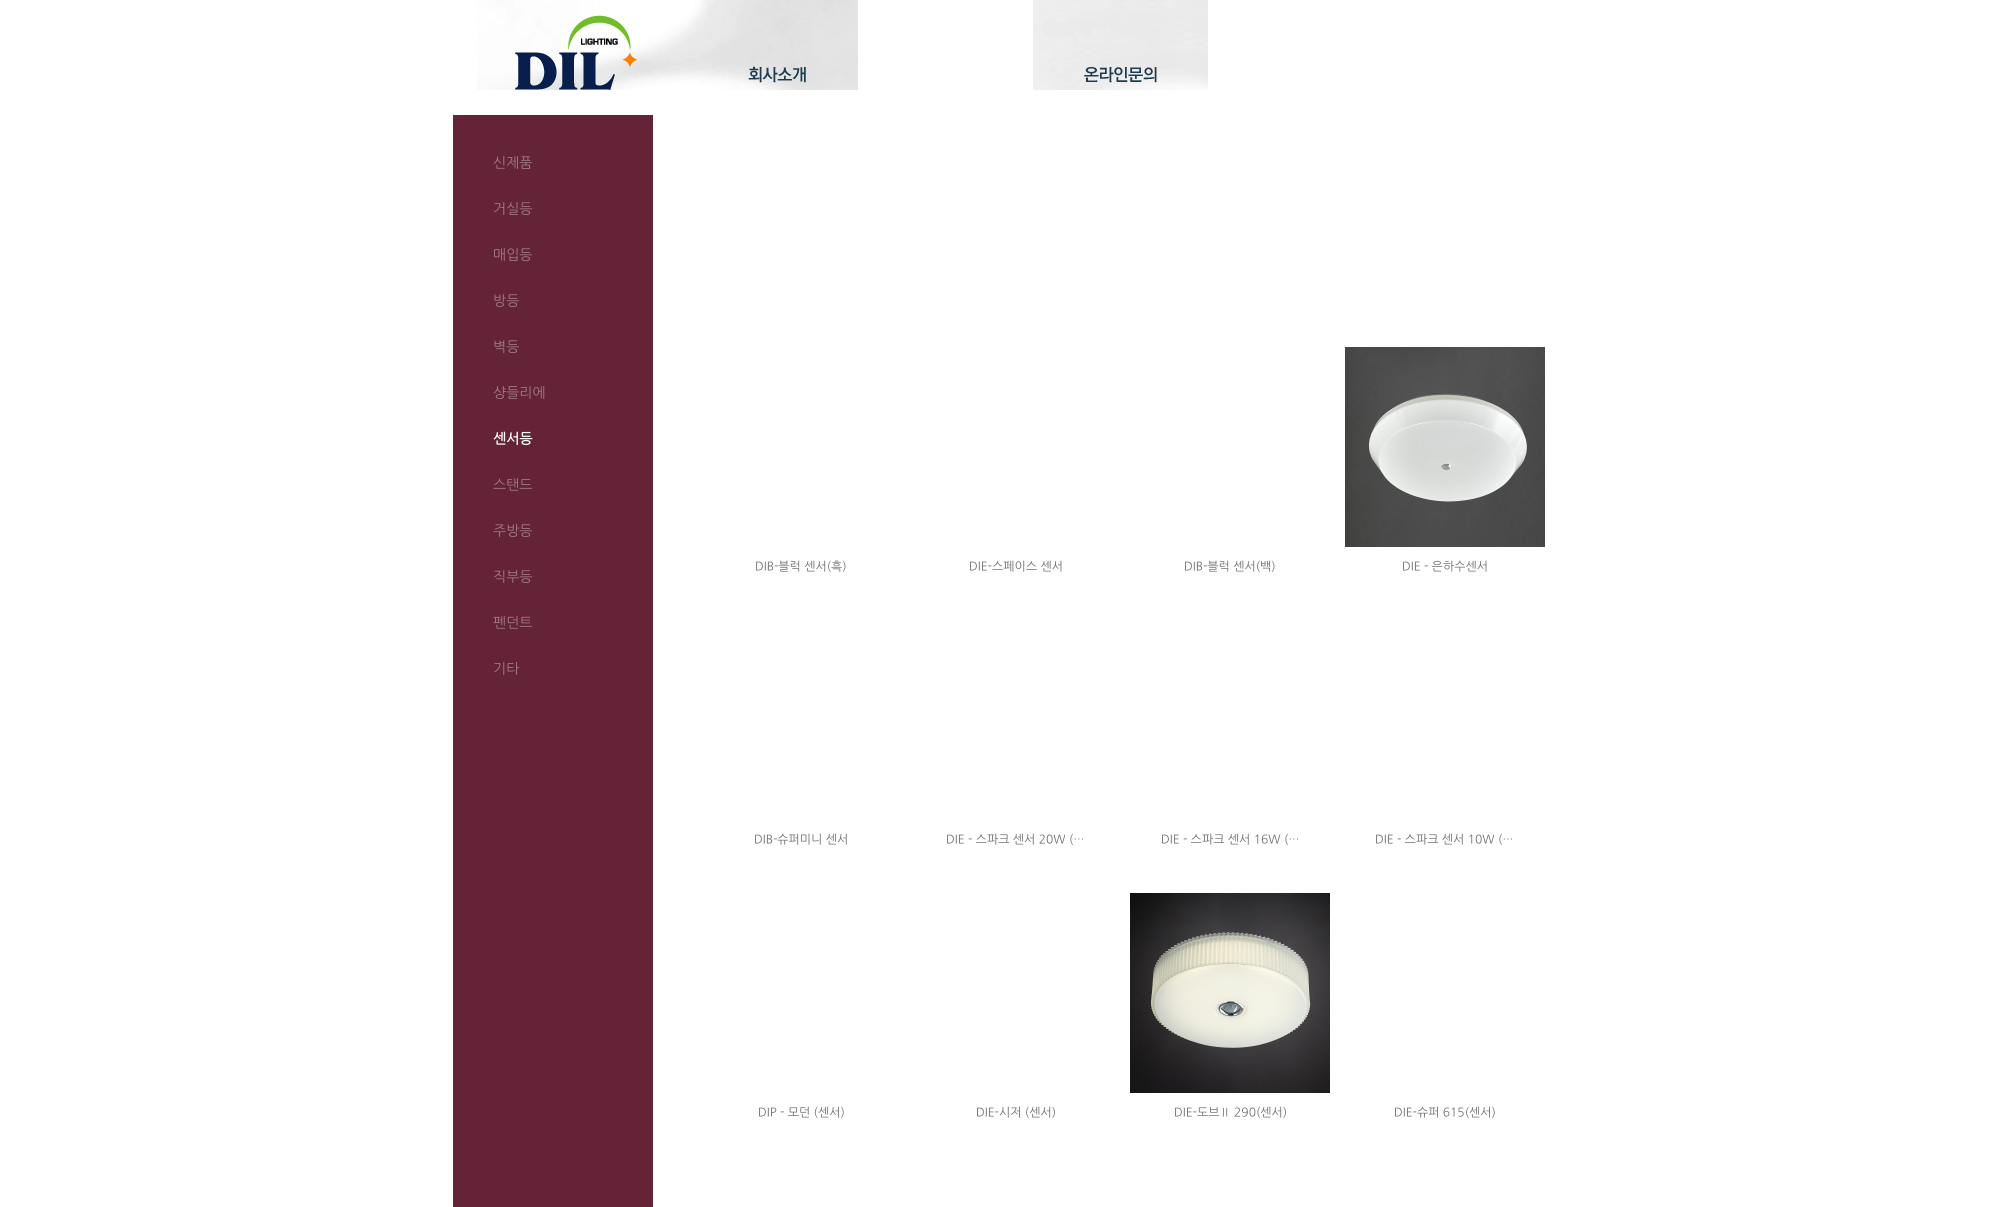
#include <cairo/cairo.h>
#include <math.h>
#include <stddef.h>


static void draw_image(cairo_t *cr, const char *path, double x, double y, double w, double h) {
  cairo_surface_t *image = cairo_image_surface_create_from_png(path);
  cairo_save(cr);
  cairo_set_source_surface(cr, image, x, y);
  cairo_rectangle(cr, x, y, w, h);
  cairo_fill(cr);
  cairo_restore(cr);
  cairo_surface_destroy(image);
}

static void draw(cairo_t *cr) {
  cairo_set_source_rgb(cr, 1, 1, 1);
  cairo_paint(cr);
  draw_image(cr, "images/1.png", 477, 0, 216, 90);
  draw_image(cr, "images/2.png", 693, 0, 165, 90);
  draw_image(cr, "images/3.png", 1033, 0, 175, 90);
  cairo_set_source_rgb(cr, 100 / 255.0, 35 / 255.0, 55 / 255.0);
  cairo_rectangle(cr, 453, 115, 200, 1092);
  cairo_fill(cr);
  draw_image(cr, "images/4.png", 1345, 347, 200, 200);
  draw_image(cr, "images/5.png", 1130, 893, 200, 200);
  cairo_select_font_face(cr, "NanumGothic", CAIRO_FONT_SLANT_NORMAL, CAIRO_FONT_WEIGHT_NORMAL);
  cairo_set_font_size(cr, 14);
  cairo_set_source_rgb(cr, 162 / 255.0, 123 / 255.0, 135 / 255.0);
  cairo_move_to(cr, 493, 167);
  cairo_show_text(cr, "신제품");
  cairo_move_to(cr, 493, 213);
  cairo_show_text(cr, "거실등");
  cairo_move_to(cr, 493, 259);
  cairo_show_text(cr, "매입등");
  cairo_move_to(cr, 493, 305);
  cairo_show_text(cr, "방등");
  cairo_move_to(cr, 493, 351);
  cairo_show_text(cr, "벽등");
  cairo_move_to(cr, 493, 397);
  cairo_show_text(cr, "샹들리에");
  cairo_select_font_face(cr, "NanumGothic", CAIRO_FONT_SLANT_NORMAL, CAIRO_FONT_WEIGHT_BOLD);
  cairo_set_source_rgb(cr, 1, 1, 1);
  cairo_move_to(cr, 493, 443);
  cairo_show_text(cr, "센서등");
  cairo_select_font_face(cr, "NanumGothic", CAIRO_FONT_SLANT_NORMAL, CAIRO_FONT_WEIGHT_NORMAL);
  cairo_set_source_rgb(cr, 162 / 255.0, 123 / 255.0, 135 / 255.0);
  cairo_move_to(cr, 493, 489);
  cairo_show_text(cr, "스탠드");
  cairo_move_to(cr, 493, 535);
  cairo_show_text(cr, "주방등");
  cairo_move_to(cr, 493, 581);
  cairo_show_text(cr, "직부등");
  cairo_move_to(cr, 493, 627);
  cairo_show_text(cr, "펜던트");
  cairo_move_to(cr, 493, 673);
  cairo_show_text(cr, "기타");
  cairo_set_font_size(cr, 12);
  cairo_set_source_rgb(cr, 108 / 255.0, 108 / 255.0, 108 / 255.0);
  cairo_move_to(cr, 755, 570);
  cairo_show_text(cr, "DIB-블럭 센서(흑)");
  cairo_move_to(cr, 969, 570);
  cairo_show_text(cr, "DIE-스페이스 센서");
  cairo_move_to(cr, 1184, 570);
  cairo_show_text(cr, "DIB-블럭 센서(백)");
  cairo_move_to(cr, 1402, 570);
  cairo_show_text(cr, "DIE - 은하수센서");
  cairo_move_to(cr, 754, 843);
  cairo_show_text(cr, "DIB-슈퍼미니 센서");
  cairo_move_to(cr, 946, 843);
  cairo_show_text(cr, "DIE - 스파크 센서 20W (…");
  cairo_move_to(cr, 1161, 843);
  cairo_show_text(cr, "DIE - 스파크 센서 16W (…");
  cairo_move_to(cr, 1375, 843);
  cairo_show_text(cr, "DIE - 스파크 센서 10W (…");
  cairo_move_to(cr, 758, 1116);
  cairo_show_text(cr, "DIP - 모던 (센서)");
  cairo_move_to(cr, 976, 1116);
  cairo_show_text(cr, "DIE-시저 (센서)");
  cairo_move_to(cr, 1174, 1116);
  cairo_show_text(cr, "DIE-도브Ⅱ 290(센서)");
  cairo_move_to(cr, 1394, 1116);
  cairo_show_text(cr, "DIE-슈퍼 615(센서)");
}

int main(void) {
  cairo_surface_t *surface = cairo_image_surface_create(CAIRO_FORMAT_RGB24, 2006, 1207);
  cairo_t *cr = cairo_create(surface);
  cairo_font_options_t *options = cairo_font_options_create();
  cairo_font_options_set_hint_metrics(options, CAIRO_HINT_METRICS_OFF);
  cairo_font_options_set_hint_style(options, CAIRO_HINT_STYLE_NONE);
  cairo_set_font_options(cr, options);
  cairo_set_miter_limit(cr, 4);
  draw(cr);
  cairo_surface_write_to_png(surface, "out.png");
  cairo_font_options_destroy(options);
  cairo_destroy(cr);
  cairo_surface_destroy(surface);
  return 0;
}
